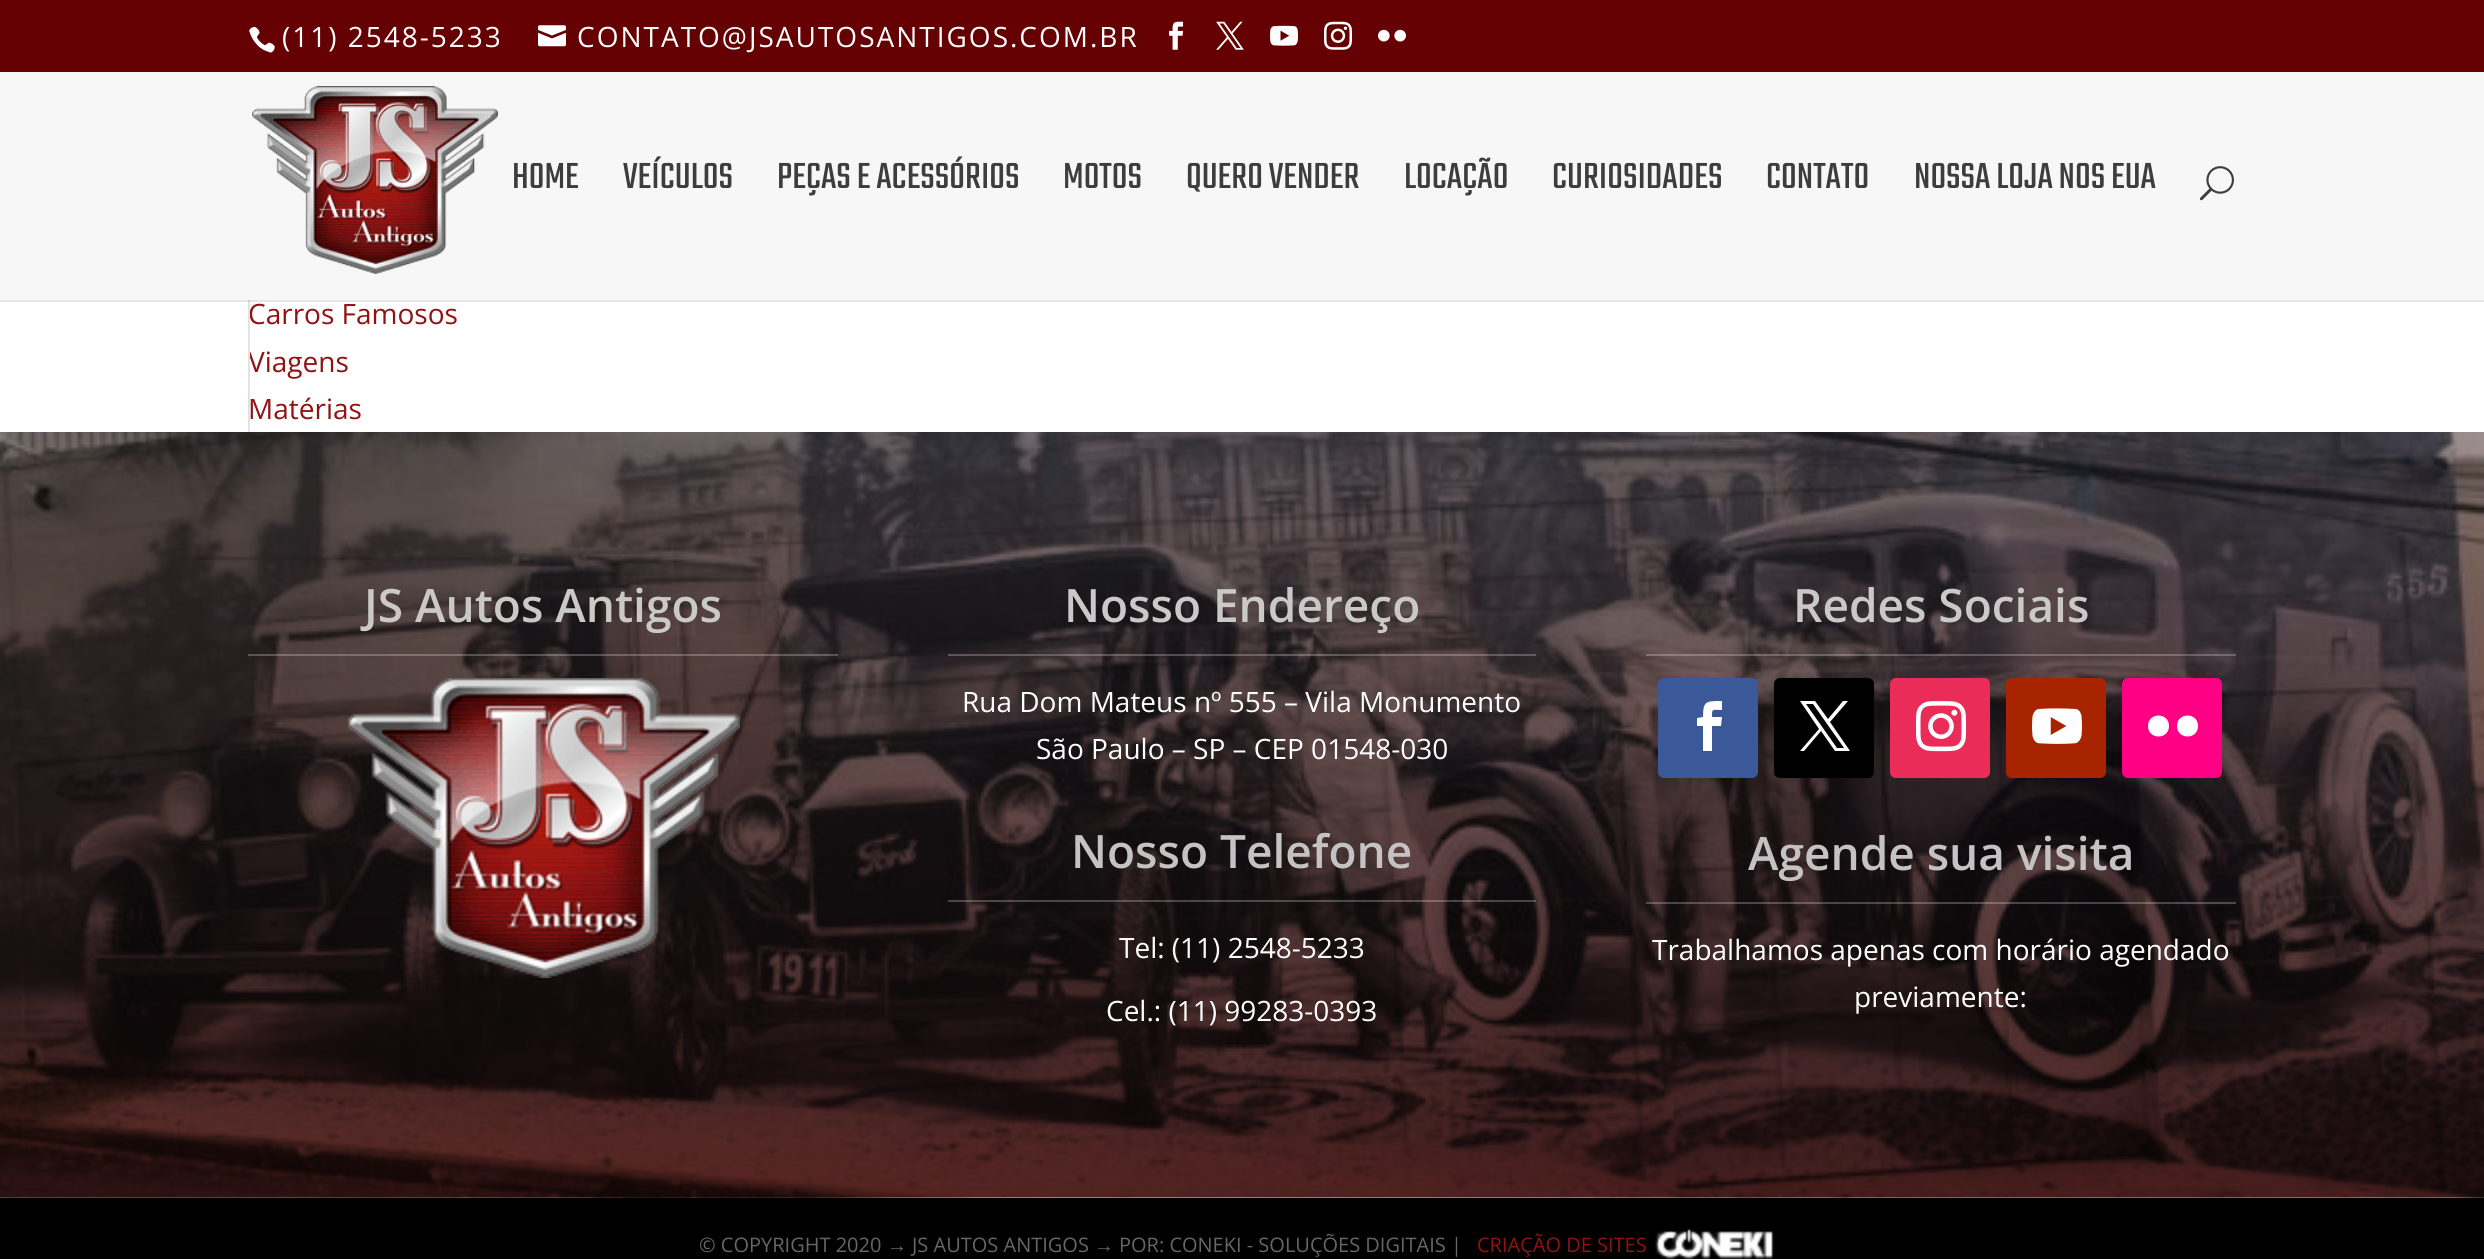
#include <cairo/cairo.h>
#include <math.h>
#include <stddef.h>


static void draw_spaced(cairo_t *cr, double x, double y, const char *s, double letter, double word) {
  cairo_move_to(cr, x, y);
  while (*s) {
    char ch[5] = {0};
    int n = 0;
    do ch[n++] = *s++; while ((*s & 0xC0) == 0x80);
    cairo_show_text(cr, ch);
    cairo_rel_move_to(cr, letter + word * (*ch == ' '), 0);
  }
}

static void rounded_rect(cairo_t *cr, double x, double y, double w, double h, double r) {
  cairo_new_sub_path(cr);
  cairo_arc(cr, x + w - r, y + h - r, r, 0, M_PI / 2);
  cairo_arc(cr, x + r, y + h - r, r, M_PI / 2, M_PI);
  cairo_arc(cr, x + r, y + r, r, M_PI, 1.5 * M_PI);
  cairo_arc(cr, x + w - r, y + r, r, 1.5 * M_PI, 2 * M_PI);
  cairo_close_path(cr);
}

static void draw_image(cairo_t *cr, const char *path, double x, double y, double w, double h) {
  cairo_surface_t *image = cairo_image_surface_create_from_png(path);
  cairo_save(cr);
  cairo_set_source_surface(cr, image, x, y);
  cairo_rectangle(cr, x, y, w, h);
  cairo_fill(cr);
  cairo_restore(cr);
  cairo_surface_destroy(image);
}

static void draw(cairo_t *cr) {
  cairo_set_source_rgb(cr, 1, 1, 1);
  cairo_paint(cr);
  cairo_set_source_rgb(cr, 230 / 255.0, 230 / 255.0, 230 / 255.0);
  cairo_rectangle(cr, 0, 300, 2484, 2);
  cairo_fill(cr);
  cairo_set_source_rgb(cr, 101 / 255.0, 0, 3 / 255.0);
  cairo_rectangle(cr, 0, 0, 2484, 72);
  cairo_fill(cr);
  draw_image(cr, "images/1.png", 249, 26, 26, 27);
  draw_image(cr, "images/2.png", 538, 25, 28, 22);
  draw_image(cr, "images/3.png", 1169, 21, 15, 29);
  draw_image(cr, "images/4.png", 1216, 21, 28, 29);
  draw_image(cr, "images/5.png", 1270, 25, 28, 21);
  draw_image(cr, "images/6.png", 1324, 21, 28, 29);
  draw_image(cr, "images/7.png", 1378, 29, 28, 13);
  cairo_set_source_rgb(cr, 247 / 255.0, 247 / 255.0, 247 / 255.0);
  cairo_rectangle(cr, 0, 72, 2484, 228);
  cairo_fill(cr);
  draw_image(cr, "images/8.png", 252, 86, 246, 188);
  draw_image(cr, "images/9.png", 2199, 166, 35, 35);
  cairo_set_source_rgb(cr, 203 / 255.0, 203 / 255.0, 203 / 255.0);
  cairo_rectangle(cr, 248, 300, 2, 2);
  cairo_fill(cr);
  draw_image(cr, "images/10.png", 0, 432, 2484, 766);
  cairo_set_source_rgba(cr, 1, 1, 1, 0.24);
  cairo_rectangle(cr, 248, 654, 590, 2);
  cairo_fill(cr);
  draw_image(cr, "images/11.png", 348, 678, 392, 300);
  cairo_rectangle(cr, 948, 654, 588, 2);
  cairo_fill(cr);
  cairo_rectangle(cr, 948, 900, 588, 2);
  cairo_fill(cr);
  cairo_rectangle(cr, 1646, 654, 590, 2);
  cairo_fill(cr);
  cairo_set_source_rgb(cr, 59 / 255.0, 89 / 255.0, 152 / 255.0);
  rounded_rect(cr, 1658, 678, 100, 100, 6);
  cairo_fill(cr);
  cairo_set_source_rgb(cr, 1, 1, 1);
  cairo_new_path(cr);
  cairo_move_to(cr, 1703, 751);
  cairo_line_to(cr, 1712, 751);
  cairo_line_to(cr, 1712, 726);
  cairo_line_to(cr, 1721, 726);
  cairo_line_to(cr, 1722, 717);
  cairo_line_to(cr, 1712, 717);
  cairo_curve_to(cr, 1712, 708, 1712, 710, 1722, 710);
  cairo_line_to(cr, 1722, 701);
  cairo_curve_to(cr, 1706, 701, 1703, 701, 1703, 717);
  cairo_line_to(cr, 1697, 718);
  cairo_line_to(cr, 1697, 726);
  cairo_line_to(cr, 1703, 726);
  cairo_close_path(cr);
  cairo_fill(cr);
  cairo_set_source_rgb(cr, 0, 0, 0);
  rounded_rect(cr, 1774, 678, 100, 100, 6);
  cairo_fill(cr);
  cairo_set_source_rgb(cr, 1, 1, 1);
  cairo_new_path(cr);
  cairo_move_to(cr, 1800, 701);
  cairo_line_to(cr, 1819, 729);
  cairo_line_to(cr, 1800, 751);
  cairo_line_to(cr, 1804, 751);
  cairo_line_to(cr, 1821, 731);
  cairo_line_to(cr, 1835, 751);
  cairo_line_to(cr, 1850, 751);
  cairo_line_to(cr, 1830, 722);
  cairo_line_to(cr, 1848, 701);
  cairo_line_to(cr, 1843, 701);
  cairo_line_to(cr, 1828, 719);
  cairo_line_to(cr, 1815, 701);
  cairo_close_path(cr);
  cairo_move_to(cr, 1806, 704);
  cairo_line_to(cr, 1813, 704);
  cairo_line_to(cr, 1844, 748);
  cairo_line_to(cr, 1837, 748);
  cairo_close_path(cr);
  cairo_fill(cr);
  cairo_set_source_rgb(cr, 234 / 255.0, 44 / 255.0, 89 / 255.0);
  rounded_rect(cr, 1890, 678, 100, 100, 6);
  cairo_fill(cr);
  draw_image(cr, "images/12.png", 1916, 701, 50, 51);
  cairo_set_source_rgb(cr, 168 / 255.0, 36 / 255.0, 0);
  rounded_rect(cr, 2006, 678, 100, 100, 6);
  cairo_fill(cr);
  draw_image(cr, "images/13.png", 2032, 708, 50, 36);
  cairo_set_source_rgb(cr, 1, 0, 132 / 255.0);
  rounded_rect(cr, 2122, 678, 100, 100, 6);
  cairo_fill(cr);
  cairo_set_source_rgb(cr, 1, 1, 1);
  cairo_new_path(cr);
  cairo_move_to(cr, 2148, 726);
  cairo_curve_to(cr, 2148, 740, 2169, 740, 2169, 726);
  cairo_curve_to(cr, 2169, 712, 2148, 712, 2148, 726);
  cairo_close_path(cr);
  cairo_move_to(cr, 2177, 726);
  cairo_curve_to(cr, 2177, 740, 2198, 740, 2198, 726);
  cairo_curve_to(cr, 2198, 712, 2177, 712, 2177, 726);
  cairo_close_path(cr);
  cairo_fill(cr);
  cairo_set_source_rgba(cr, 1, 1, 1, 0.24);
  cairo_rectangle(cr, 1646, 902, 590, 2);
  cairo_fill(cr);
  cairo_set_source_rgb(cr, 0, 0, 0);
  cairo_rectangle(cr, 0, 1198, 2484, 61);
  cairo_fill(cr);
  draw_image(cr, "images/14.png", 1655, 1229, 119, 30);
  cairo_select_font_face(cr, "Open Sans", CAIRO_FONT_SLANT_NORMAL, CAIRO_FONT_WEIGHT_NORMAL);
  cairo_set_font_size(cr, 28);
  cairo_set_source_rgb(cr, 1, 1, 1);
  draw_spaced(cr, 282, 47, "(11) 2548-5233", 2, 0);
  draw_spaced(cr, 577, 47, "CONTATO@JSAUTOSANTIGOS.COM.BR", 2, 0);
  cairo_select_font_face(cr, "Teko", CAIRO_FONT_SLANT_NORMAL, CAIRO_FONT_WEIGHT_NORMAL);
  cairo_set_font_size(cr, 40);
  cairo_set_source_rgb(cr, 61 / 255.0, 61 / 255.0, 61 / 255.0);
  cairo_move_to(cr, 512, 188);
  cairo_show_text(cr, "HOME");
  cairo_move_to(cr, 623, 188);
  cairo_show_text(cr, "VEÍCULOS");
  cairo_move_to(cr, 777, 188);
  cairo_show_text(cr, "PEÇAS E ACESSÓRIOS");
  cairo_move_to(cr, 1063, 188);
  cairo_show_text(cr, "MOTOS");
  cairo_move_to(cr, 1186, 188);
  cairo_show_text(cr, "QUERO VENDER");
  cairo_move_to(cr, 1404, 188);
  cairo_show_text(cr, "LOCAÇÃO");
  cairo_move_to(cr, 1552, 188);
  cairo_show_text(cr, "CURIOSIDADES");
  cairo_move_to(cr, 1766, 188);
  cairo_show_text(cr, "CONTATO");
  cairo_move_to(cr, 1914, 188);
  cairo_show_text(cr, "NOSSA LOJA NOS EUA");
  cairo_select_font_face(cr, "Open Sans", CAIRO_FONT_SLANT_NORMAL, CAIRO_FONT_WEIGHT_NORMAL);
  cairo_set_font_size(cr, 28);
  cairo_set_source_rgb(cr, 144 / 255.0, 19 / 255.0, 19 / 255.0);
  cairo_move_to(cr, 248, 324);
  cairo_show_text(cr, "Carros Famosos");
  cairo_move_to(cr, 248, 372);
  cairo_show_text(cr, "Viagens");
  cairo_set_source_rgb(cr, 226 / 255.0, 226 / 255.0, 226 / 255.0);
  cairo_rectangle(cr, 248, 302, 2, 130);
  cairo_fill(cr);
  cairo_set_source_rgb(cr, 144 / 255.0, 19 / 255.0, 19 / 255.0);
  cairo_move_to(cr, 248, 419);
  cairo_show_text(cr, "Matérias");
  cairo_select_font_face(cr, "Open Sans SemiBold", CAIRO_FONT_SLANT_NORMAL, CAIRO_FONT_WEIGHT_NORMAL);
  cairo_set_font_size(cr, 46);
  cairo_set_source_rgb(cr, 203 / 255.0, 200 / 255.0, 200 / 255.0);
  cairo_move_to(cr, 364, 622);
  cairo_show_text(cr, "JS Autos Antigos");
  cairo_move_to(cr, 1064, 622);
  cairo_show_text(cr, "Nosso Endereço");
  cairo_select_font_face(cr, "Open Sans", CAIRO_FONT_SLANT_NORMAL, CAIRO_FONT_WEIGHT_NORMAL);
  cairo_set_font_size(cr, 28);
  cairo_set_source_rgb(cr, 1, 1, 1);
  cairo_move_to(cr, 962, 712);
  cairo_show_text(cr, "Rua Dom Mateus nº 555 – Vila Monumento");
  cairo_move_to(cr, 1036, 759);
  cairo_show_text(cr, "São Paulo – SP – CEP 01548-030");
  cairo_select_font_face(cr, "Open Sans SemiBold", CAIRO_FONT_SLANT_NORMAL, CAIRO_FONT_WEIGHT_NORMAL);
  cairo_set_font_size(cr, 46);
  cairo_set_source_rgb(cr, 197 / 255.0, 194 / 255.0, 195 / 255.0);
  cairo_move_to(cr, 1071, 868);
  cairo_show_text(cr, "Nosso Telefone");
  cairo_select_font_face(cr, "Open Sans", CAIRO_FONT_SLANT_NORMAL, CAIRO_FONT_WEIGHT_NORMAL);
  cairo_set_font_size(cr, 28);
  cairo_set_source_rgb(cr, 1, 1, 1);
  cairo_move_to(cr, 1119, 958);
  cairo_show_text(cr, "Tel: (11) 2548-5233");
  cairo_move_to(cr, 1106, 1021);
  cairo_show_text(cr, "Cel.: (11) 99283-0393");
  cairo_select_font_face(cr, "Open Sans SemiBold", CAIRO_FONT_SLANT_NORMAL, CAIRO_FONT_WEIGHT_NORMAL);
  cairo_set_font_size(cr, 46);
  cairo_set_source_rgb(cr, 203 / 255.0, 200 / 255.0, 200 / 255.0);
  cairo_move_to(cr, 1793, 622);
  cairo_show_text(cr, "Redes Sociais");
  cairo_set_source_rgb(cr, 197 / 255.0, 194 / 255.0, 195 / 255.0);
  cairo_move_to(cr, 1748, 870);
  cairo_show_text(cr, "Agende sua visita");
  cairo_select_font_face(cr, "Open Sans", CAIRO_FONT_SLANT_NORMAL, CAIRO_FONT_WEIGHT_NORMAL);
  cairo_set_font_size(cr, 28);
  cairo_set_source_rgb(cr, 1, 1, 1);
  cairo_move_to(cr, 1652, 960);
  cairo_show_text(cr, "Trabalhamos apenas com horário agendado");
  cairo_move_to(cr, 1854, 1007);
  cairo_show_text(cr, "previamente:");
  cairo_set_font_size(cr, 20);
  cairo_set_source_rgb(cr, 102 / 255.0, 102 / 255.0, 102 / 255.0);
  cairo_move_to(cr, 699, 1252);
  cairo_show_text(cr, "© COPYRIGHT 2020");
  cairo_select_font_face(cr, "Liberation Sans", CAIRO_FONT_SLANT_NORMAL, CAIRO_FONT_WEIGHT_NORMAL);
  cairo_move_to(cr, 887, 1252);
  cairo_show_text(cr, "→");
  cairo_select_font_face(cr, "Open Sans", CAIRO_FONT_SLANT_NORMAL, CAIRO_FONT_WEIGHT_NORMAL);
  cairo_move_to(cr, 912, 1252);
  cairo_show_text(cr, "JS AUTOS ANTIGOS");
  cairo_select_font_face(cr, "Liberation Sans", CAIRO_FONT_SLANT_NORMAL, CAIRO_FONT_WEIGHT_NORMAL);
  cairo_move_to(cr, 1094, 1252);
  cairo_show_text(cr, "→");
  cairo_select_font_face(cr, "Open Sans", CAIRO_FONT_SLANT_NORMAL, CAIRO_FONT_WEIGHT_NORMAL);
  cairo_move_to(cr, 1119, 1252);
  cairo_show_text(cr, "POR: CONEKI - SOLUÇÕES DIGITAIS |");
  cairo_set_source_rgb(cr, 144 / 255.0, 19 / 255.0, 19 / 255.0);
  cairo_move_to(cr, 1477, 1252);
  cairo_show_text(cr, "CRIAÇÃO DE SITES");
}

int main(void) {
  cairo_surface_t *surface = cairo_image_surface_create(CAIRO_FORMAT_RGB24, 2484, 1259);
  cairo_t *cr = cairo_create(surface);
  cairo_font_options_t *options = cairo_font_options_create();
  cairo_font_options_set_hint_metrics(options, CAIRO_HINT_METRICS_OFF);
  cairo_font_options_set_hint_style(options, CAIRO_HINT_STYLE_NONE);
  cairo_set_font_options(cr, options);
  cairo_set_miter_limit(cr, 4);
  draw(cr);
  cairo_surface_write_to_png(surface, "out.png");
  cairo_font_options_destroy(options);
  cairo_destroy(cr);
  cairo_surface_destroy(surface);
  return 0;
}
